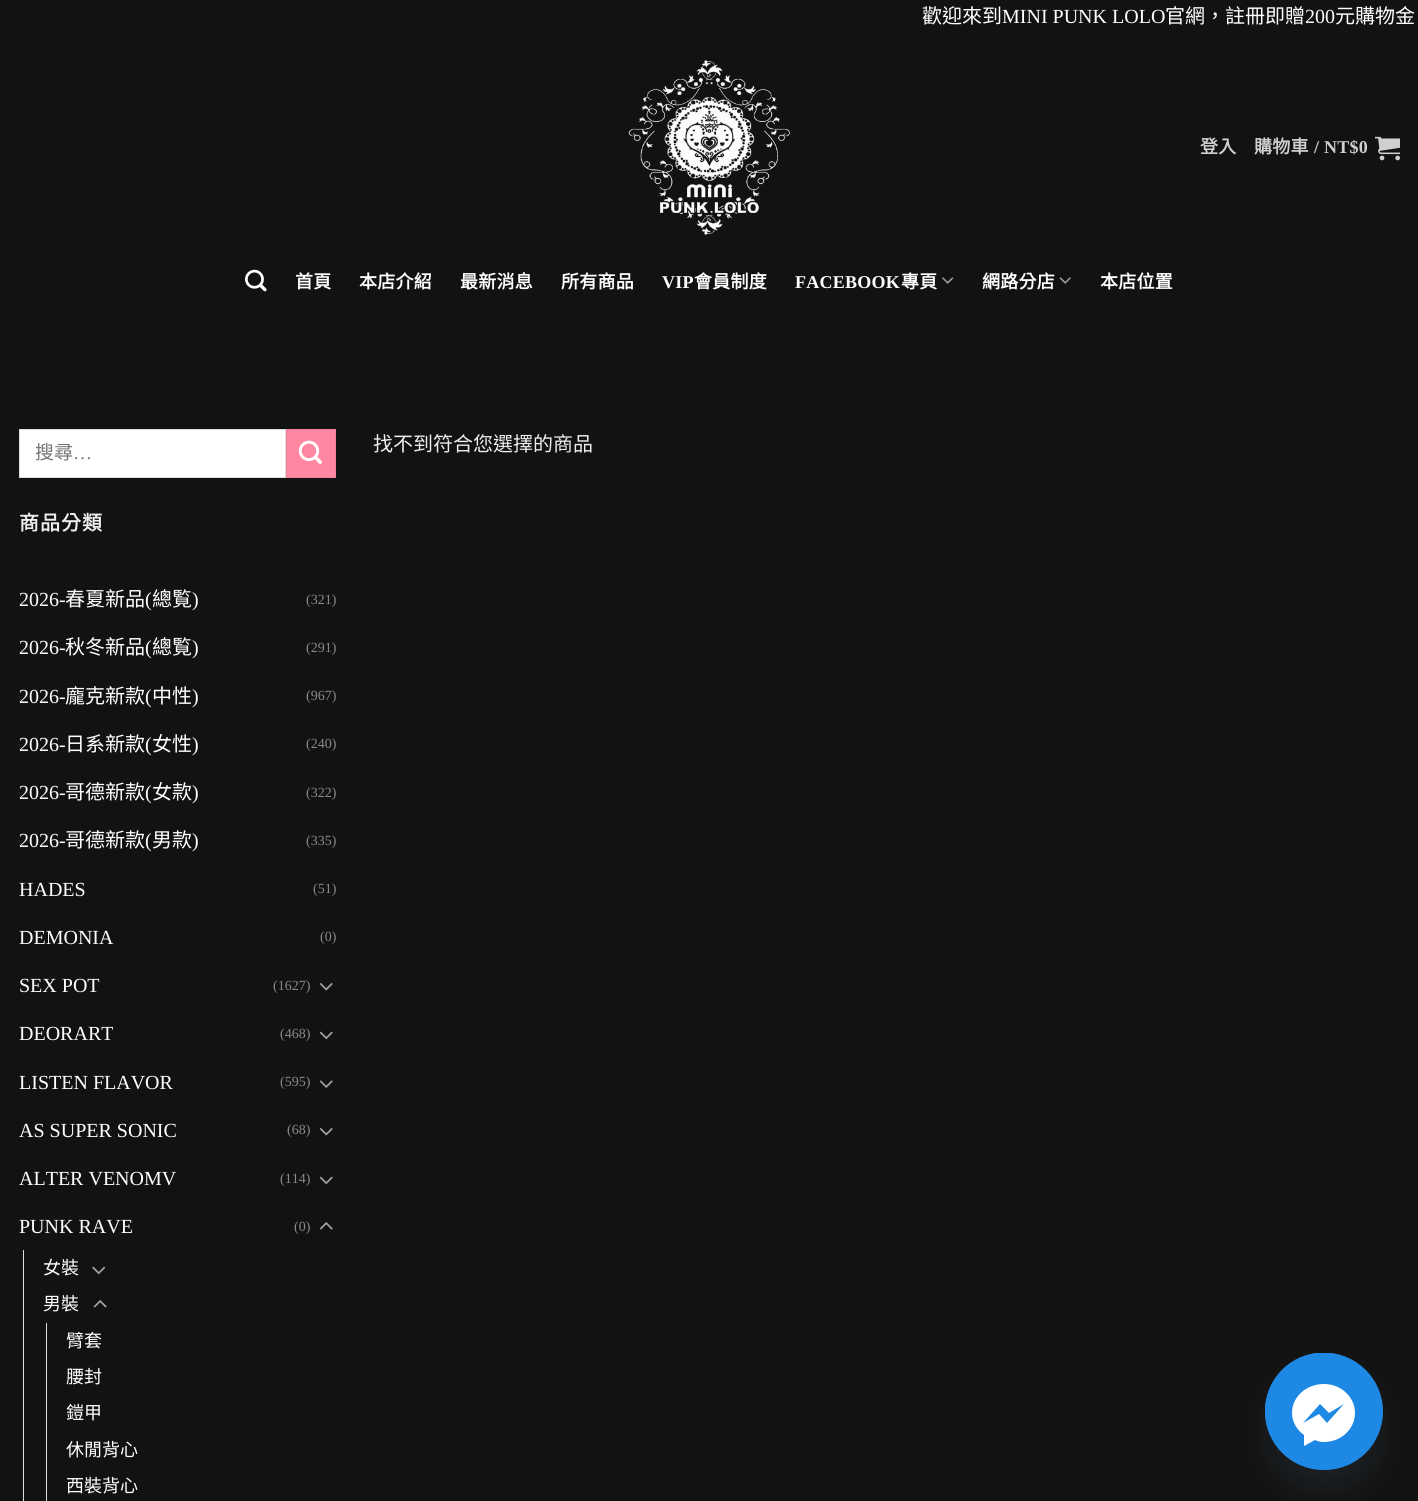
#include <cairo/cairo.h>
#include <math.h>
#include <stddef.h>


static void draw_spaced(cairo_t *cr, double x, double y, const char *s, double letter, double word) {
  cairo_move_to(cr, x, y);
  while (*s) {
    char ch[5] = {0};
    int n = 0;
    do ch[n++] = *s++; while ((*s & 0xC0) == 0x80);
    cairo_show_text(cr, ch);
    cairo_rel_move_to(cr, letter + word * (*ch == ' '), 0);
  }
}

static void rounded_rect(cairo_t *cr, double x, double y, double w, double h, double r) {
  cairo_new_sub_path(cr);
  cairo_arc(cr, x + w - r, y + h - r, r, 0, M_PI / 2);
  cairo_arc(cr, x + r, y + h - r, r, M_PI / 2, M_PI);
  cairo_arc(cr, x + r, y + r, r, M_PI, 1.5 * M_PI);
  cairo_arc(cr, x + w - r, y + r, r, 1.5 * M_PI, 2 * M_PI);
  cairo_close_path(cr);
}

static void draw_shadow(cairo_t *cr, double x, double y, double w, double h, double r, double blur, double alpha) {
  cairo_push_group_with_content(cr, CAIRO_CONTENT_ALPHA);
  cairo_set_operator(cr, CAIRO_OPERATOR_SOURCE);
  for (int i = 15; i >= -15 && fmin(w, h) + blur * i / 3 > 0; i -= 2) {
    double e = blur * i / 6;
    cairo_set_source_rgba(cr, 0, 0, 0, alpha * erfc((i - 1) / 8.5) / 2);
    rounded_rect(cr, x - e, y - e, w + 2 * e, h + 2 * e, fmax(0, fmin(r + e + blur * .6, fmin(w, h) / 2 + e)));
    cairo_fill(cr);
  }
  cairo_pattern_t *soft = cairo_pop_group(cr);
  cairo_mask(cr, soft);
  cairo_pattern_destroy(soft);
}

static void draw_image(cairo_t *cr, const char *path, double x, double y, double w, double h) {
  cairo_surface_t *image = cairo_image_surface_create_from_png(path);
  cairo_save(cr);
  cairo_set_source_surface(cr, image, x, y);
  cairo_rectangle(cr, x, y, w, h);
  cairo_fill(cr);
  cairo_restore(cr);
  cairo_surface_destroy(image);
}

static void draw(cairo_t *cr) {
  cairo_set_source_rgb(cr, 18 / 255.0, 18 / 255.0, 18 / 255.0);
  cairo_paint(cr);
  draw_image(cr, "images/1.png", 628, 60, 162, 175);
  draw_image(cr, "images/2.png", 1375, 136, 25, 25);
  draw_image(cr, "images/3.png", 245, 269, 22, 23);
  draw_image(cr, "images/4.png", 942, 277, 12, 7);
  draw_image(cr, "images/5.png", 1059, 277, 12, 7);
  cairo_set_source_rgb(cr, 1, 1, 1);
  cairo_rectangle(cr, 19.5, 429.5, 266, 48);
  cairo_fill_preserve(cr);
  cairo_set_source_rgb(cr, 221 / 255.0, 221 / 255.0, 221 / 255.0);
  cairo_set_line_width(cr, 1);
  cairo_stroke(cr);
  cairo_set_source_rgb(cr, 1, 135 / 255.0, 161 / 255.0);
  cairo_rectangle(cr, 286.5, 429.5, 49, 48);
  cairo_fill_preserve(cr);
  cairo_set_source_rgb(cr, 242 / 255.0, 128 / 255.0, 153 / 255.0);
  cairo_stroke(cr);
  draw_image(cr, "images/6.png", 298, 440, 24, 24);
  draw_image(cr, "images/7.png", 319, 983, 14, 8);
  draw_image(cr, "images/8.png", 319, 1031, 14, 9);
  draw_image(cr, "images/9.png", 319, 1080, 14, 8);
  draw_image(cr, "images/7.png", 319, 1128, 14, 8);
  draw_image(cr, "images/8.png", 319, 1176, 14, 9);
  draw_image(cr, "images/10.png", 319, 1222, 14, 8);
  cairo_set_source_rgb(cr, 221 / 255.0, 221 / 255.0, 221 / 255.0);
  cairo_rectangle(cr, 23, 1250, 1, 251);
  cairo_fill(cr);
  draw_image(cr, "images/11.png", 92, 1266, 14, 9);
  draw_image(cr, "images/12.png", 93, 1300, 14, 8);
  cairo_rectangle(cr, 46, 1323, 1, 178);
  cairo_fill(cr);
  cairo_set_source_rgb(cr, 73 / 255.0, 104 / 255.0, 126 / 255.0);
  draw_shadow(cr, 1265, 1373, 118, 117, 58.5, 15, 0.16);
  cairo_set_source_rgb(cr, 30 / 255.0, 136 / 255.0, 229 / 255.0);
  rounded_rect(cr, 1265, 1353, 118, 117, 58.5);
  cairo_fill(cr);
  cairo_save(cr);
  cairo_rectangle(cr, 1265, 1353, 118, 117);
  cairo_clip(cr);
  cairo_arc(cr, 1323.5, 1411, 58.5, 0, 2 * M_PI);
  cairo_fill(cr);
  cairo_restore(cr);
  cairo_set_source_rgb(cr, 1, 1, 1);
  cairo_set_fill_rule(cr, CAIRO_FILL_RULE_EVEN_ODD);
  cairo_new_path(cr);
  cairo_move_to(cr, 1292, 1413);
  cairo_curve_to(cr, 1292, 1397, 1306, 1384, 1324, 1384);
  cairo_curve_to(cr, 1341, 1384, 1355, 1397, 1355, 1413);
  cairo_curve_to(cr, 1355, 1429, 1341, 1442, 1324, 1442);
  cairo_curve_to(cr, 1320, 1442, 1317, 1441, 1315, 1440);
  cairo_line_to(cr, 1304, 1446);
  cairo_line_to(cr, 1304, 1435);
  cairo_curve_to(cr, 1297, 1430, 1292, 1422, 1292, 1413);
  cairo_close_path(cr);
  cairo_move_to(cr, 1319, 1414);
  cairo_line_to(cr, 1327, 1423);
  cairo_line_to(cr, 1344, 1404);
  cairo_line_to(cr, 1329, 1413);
  cairo_line_to(cr, 1320, 1404);
  cairo_line_to(cr, 1303, 1423);
  cairo_close_path(cr);
  cairo_fill(cr);
  cairo_select_font_face(cr, "Noto Sans CJK TC", CAIRO_FONT_SLANT_NORMAL, CAIRO_FONT_WEIGHT_NORMAL);
  cairo_set_font_size(cr, 20);
  cairo_move_to(cr, 922, 23);
  cairo_show_text(cr, "歡迎來到");
  cairo_select_font_face(cr, "Liberation Serif", CAIRO_FONT_SLANT_NORMAL, CAIRO_FONT_WEIGHT_NORMAL);
  cairo_move_to(cr, 1002, 23);
  cairo_show_text(cr, "MINI PUNK LOLO");
  cairo_select_font_face(cr, "Noto Sans CJK TC", CAIRO_FONT_SLANT_NORMAL, CAIRO_FONT_WEIGHT_NORMAL);
  cairo_move_to(cr, 1165, 23);
  cairo_show_text(cr, "官網，註冊即贈");
  cairo_select_font_face(cr, "Liberation Serif", CAIRO_FONT_SLANT_NORMAL, CAIRO_FONT_WEIGHT_NORMAL);
  cairo_move_to(cr, 1305, 23);
  cairo_show_text(cr, "200");
  cairo_select_font_face(cr, "Noto Sans CJK TC", CAIRO_FONT_SLANT_NORMAL, CAIRO_FONT_WEIGHT_NORMAL);
  cairo_move_to(cr, 1335, 23);
  cairo_show_text(cr, "元購物金");
  cairo_select_font_face(cr, "Noto Sans CJK TC", CAIRO_FONT_SLANT_NORMAL, CAIRO_FONT_WEIGHT_BOLD);
  cairo_set_font_size(cr, 18);
  cairo_set_source_rgb(cr, 208 / 255.0, 208 / 255.0, 208 / 255.0);
  draw_spaced(cr, 1200, 153, "登入", 0.25, 0);
  draw_spaced(cr, 1254, 153, "購物車", 0.25, 0);
  cairo_select_font_face(cr, "Liberation Serif", CAIRO_FONT_SLANT_NORMAL, CAIRO_FONT_WEIGHT_BOLD);
  draw_spaced(cr, 1314, 153, "/ NT$0", 0.25, 0);
  cairo_select_font_face(cr, "Noto Sans CJK TC", CAIRO_FONT_SLANT_NORMAL, CAIRO_FONT_WEIGHT_BOLD);
  cairo_set_source_rgb(cr, 1, 1, 1);
  draw_spaced(cr, 295, 288, "首頁", 0.25, 0);
  draw_spaced(cr, 359, 288, "本店介紹", 0.25, 0);
  draw_spaced(cr, 460, 288, "最新消息", 0.25, 0);
  draw_spaced(cr, 561, 288, "所有商品", 0.25, 0);
  cairo_select_font_face(cr, "Liberation Serif", CAIRO_FONT_SLANT_NORMAL, CAIRO_FONT_WEIGHT_BOLD);
  draw_spaced(cr, 662, 288, "VIP", 0.25, 0);
  cairo_select_font_face(cr, "Noto Sans CJK TC", CAIRO_FONT_SLANT_NORMAL, CAIRO_FONT_WEIGHT_BOLD);
  draw_spaced(cr, 694, 288, "會員制度", 0.25, 0);
  cairo_select_font_face(cr, "Liberation Serif", CAIRO_FONT_SLANT_NORMAL, CAIRO_FONT_WEIGHT_BOLD);
  draw_spaced(cr, 795, 288, "FACEBOOK", 0.25, 0);
  cairo_select_font_face(cr, "Noto Sans CJK TC", CAIRO_FONT_SLANT_NORMAL, CAIRO_FONT_WEIGHT_BOLD);
  draw_spaced(cr, 901, 288, "專頁", 0.25, 0);
  draw_spaced(cr, 982, 288, "網路分店", 0.25, 0);
  draw_spaced(cr, 1100, 288, "本店位置", 0.25, 0);
  cairo_select_font_face(cr, "Noto Sans CJK TC", CAIRO_FONT_SLANT_NORMAL, CAIRO_FONT_WEIGHT_NORMAL);
  cairo_set_font_size(cr, 19);
  cairo_set_source_rgb(cr, 117 / 255.0, 117 / 255.0, 117 / 255.0);
  cairo_move_to(cr, 35, 459);
  cairo_show_text(cr, "搜尋");
  cairo_select_font_face(cr, "Liberation Serif", CAIRO_FONT_SLANT_NORMAL, CAIRO_FONT_WEIGHT_NORMAL);
  cairo_move_to(cr, 73, 459);
  cairo_show_text(cr, "…");
  cairo_select_font_face(cr, "Noto Sans CJK TC", CAIRO_FONT_SLANT_NORMAL, CAIRO_FONT_WEIGHT_BOLD);
  cairo_set_font_size(cr, 20);
  cairo_set_source_rgb(cr, 238 / 255.0, 238 / 255.0, 238 / 255.0);
  draw_spaced(cr, 19, 530, "商品分類", 1, 0);
  cairo_select_font_face(cr, "Liberation Serif", CAIRO_FONT_SLANT_NORMAL, CAIRO_FONT_WEIGHT_NORMAL);
  cairo_set_source_rgb(cr, 1, 1, 1);
  cairo_move_to(cr, 19, 606);
  cairo_show_text(cr, "2026-");
  cairo_select_font_face(cr, "Noto Sans CJK TC", CAIRO_FONT_SLANT_NORMAL, CAIRO_FONT_WEIGHT_NORMAL);
  cairo_move_to(cr, 65, 606);
  cairo_show_text(cr, "春夏新品");
  cairo_select_font_face(cr, "Liberation Serif", CAIRO_FONT_SLANT_NORMAL, CAIRO_FONT_WEIGHT_NORMAL);
  cairo_move_to(cr, 145, 606);
  cairo_show_text(cr, "(");
  cairo_select_font_face(cr, "Noto Sans CJK TC", CAIRO_FONT_SLANT_NORMAL, CAIRO_FONT_WEIGHT_NORMAL);
  cairo_move_to(cr, 152, 606);
  cairo_show_text(cr, "總覧");
  cairo_select_font_face(cr, "Liberation Serif", CAIRO_FONT_SLANT_NORMAL, CAIRO_FONT_WEIGHT_NORMAL);
  cairo_move_to(cr, 192, 606);
  cairo_show_text(cr, ")");
  cairo_set_font_size(cr, 14);
  cairo_set_source_rgb(cr, 137 / 255.0, 137 / 255.0, 137 / 255.0);
  cairo_move_to(cr, 306, 604);
  cairo_show_text(cr, "(321)");
  cairo_set_font_size(cr, 20);
  cairo_set_source_rgb(cr, 1, 1, 1);
  cairo_move_to(cr, 19, 654);
  cairo_show_text(cr, "2026-");
  cairo_select_font_face(cr, "Noto Sans CJK TC", CAIRO_FONT_SLANT_NORMAL, CAIRO_FONT_WEIGHT_NORMAL);
  cairo_move_to(cr, 65, 654);
  cairo_show_text(cr, "秋冬新品");
  cairo_select_font_face(cr, "Liberation Serif", CAIRO_FONT_SLANT_NORMAL, CAIRO_FONT_WEIGHT_NORMAL);
  cairo_move_to(cr, 145, 654);
  cairo_show_text(cr, "(");
  cairo_select_font_face(cr, "Noto Sans CJK TC", CAIRO_FONT_SLANT_NORMAL, CAIRO_FONT_WEIGHT_NORMAL);
  cairo_move_to(cr, 152, 654);
  cairo_show_text(cr, "總覧");
  cairo_select_font_face(cr, "Liberation Serif", CAIRO_FONT_SLANT_NORMAL, CAIRO_FONT_WEIGHT_NORMAL);
  cairo_move_to(cr, 192, 654);
  cairo_show_text(cr, ")");
  cairo_set_font_size(cr, 14);
  cairo_set_source_rgb(cr, 137 / 255.0, 137 / 255.0, 137 / 255.0);
  cairo_move_to(cr, 306, 652);
  cairo_show_text(cr, "(291)");
  cairo_set_font_size(cr, 20);
  cairo_set_source_rgb(cr, 1, 1, 1);
  cairo_move_to(cr, 19, 703);
  cairo_show_text(cr, "2026-");
  cairo_select_font_face(cr, "Noto Sans CJK TC", CAIRO_FONT_SLANT_NORMAL, CAIRO_FONT_WEIGHT_NORMAL);
  cairo_move_to(cr, 65, 703);
  cairo_show_text(cr, "龐克新款");
  cairo_select_font_face(cr, "Liberation Serif", CAIRO_FONT_SLANT_NORMAL, CAIRO_FONT_WEIGHT_NORMAL);
  cairo_move_to(cr, 145, 703);
  cairo_show_text(cr, "(");
  cairo_select_font_face(cr, "Noto Sans CJK TC", CAIRO_FONT_SLANT_NORMAL, CAIRO_FONT_WEIGHT_NORMAL);
  cairo_move_to(cr, 152, 703);
  cairo_show_text(cr, "中性");
  cairo_select_font_face(cr, "Liberation Serif", CAIRO_FONT_SLANT_NORMAL, CAIRO_FONT_WEIGHT_NORMAL);
  cairo_move_to(cr, 192, 703);
  cairo_show_text(cr, ")");
  cairo_set_font_size(cr, 14);
  cairo_set_source_rgb(cr, 137 / 255.0, 137 / 255.0, 137 / 255.0);
  cairo_move_to(cr, 306, 700);
  cairo_show_text(cr, "(967)");
  cairo_set_font_size(cr, 20);
  cairo_set_source_rgb(cr, 1, 1, 1);
  cairo_move_to(cr, 19, 751);
  cairo_show_text(cr, "2026-");
  cairo_select_font_face(cr, "Noto Sans CJK TC", CAIRO_FONT_SLANT_NORMAL, CAIRO_FONT_WEIGHT_NORMAL);
  cairo_move_to(cr, 65, 751);
  cairo_show_text(cr, "日系新款");
  cairo_select_font_face(cr, "Liberation Serif", CAIRO_FONT_SLANT_NORMAL, CAIRO_FONT_WEIGHT_NORMAL);
  cairo_move_to(cr, 145, 751);
  cairo_show_text(cr, "(");
  cairo_select_font_face(cr, "Noto Sans CJK TC", CAIRO_FONT_SLANT_NORMAL, CAIRO_FONT_WEIGHT_NORMAL);
  cairo_move_to(cr, 152, 751);
  cairo_show_text(cr, "女性");
  cairo_select_font_face(cr, "Liberation Serif", CAIRO_FONT_SLANT_NORMAL, CAIRO_FONT_WEIGHT_NORMAL);
  cairo_move_to(cr, 192, 751);
  cairo_show_text(cr, ")");
  cairo_set_font_size(cr, 14);
  cairo_set_source_rgb(cr, 137 / 255.0, 137 / 255.0, 137 / 255.0);
  cairo_move_to(cr, 306, 748);
  cairo_show_text(cr, "(240)");
  cairo_set_font_size(cr, 20);
  cairo_set_source_rgb(cr, 1, 1, 1);
  cairo_move_to(cr, 19, 799);
  cairo_show_text(cr, "2026-");
  cairo_select_font_face(cr, "Noto Sans CJK TC", CAIRO_FONT_SLANT_NORMAL, CAIRO_FONT_WEIGHT_NORMAL);
  cairo_move_to(cr, 65, 799);
  cairo_show_text(cr, "哥德新款");
  cairo_select_font_face(cr, "Liberation Serif", CAIRO_FONT_SLANT_NORMAL, CAIRO_FONT_WEIGHT_NORMAL);
  cairo_move_to(cr, 145, 799);
  cairo_show_text(cr, "(");
  cairo_select_font_face(cr, "Noto Sans CJK TC", CAIRO_FONT_SLANT_NORMAL, CAIRO_FONT_WEIGHT_NORMAL);
  cairo_move_to(cr, 152, 799);
  cairo_show_text(cr, "女款");
  cairo_select_font_face(cr, "Liberation Serif", CAIRO_FONT_SLANT_NORMAL, CAIRO_FONT_WEIGHT_NORMAL);
  cairo_move_to(cr, 192, 799);
  cairo_show_text(cr, ")");
  cairo_set_font_size(cr, 14);
  cairo_set_source_rgb(cr, 137 / 255.0, 137 / 255.0, 137 / 255.0);
  cairo_move_to(cr, 306, 797);
  cairo_show_text(cr, "(322)");
  cairo_set_font_size(cr, 20);
  cairo_set_source_rgb(cr, 1, 1, 1);
  cairo_move_to(cr, 19, 847);
  cairo_show_text(cr, "2026-");
  cairo_select_font_face(cr, "Noto Sans CJK TC", CAIRO_FONT_SLANT_NORMAL, CAIRO_FONT_WEIGHT_NORMAL);
  cairo_move_to(cr, 65, 847);
  cairo_show_text(cr, "哥德新款");
  cairo_select_font_face(cr, "Liberation Serif", CAIRO_FONT_SLANT_NORMAL, CAIRO_FONT_WEIGHT_NORMAL);
  cairo_move_to(cr, 145, 847);
  cairo_show_text(cr, "(");
  cairo_select_font_face(cr, "Noto Sans CJK TC", CAIRO_FONT_SLANT_NORMAL, CAIRO_FONT_WEIGHT_NORMAL);
  cairo_move_to(cr, 152, 847);
  cairo_show_text(cr, "男款");
  cairo_select_font_face(cr, "Liberation Serif", CAIRO_FONT_SLANT_NORMAL, CAIRO_FONT_WEIGHT_NORMAL);
  cairo_move_to(cr, 192, 847);
  cairo_show_text(cr, ")");
  cairo_set_font_size(cr, 14);
  cairo_set_source_rgb(cr, 137 / 255.0, 137 / 255.0, 137 / 255.0);
  cairo_move_to(cr, 306, 845);
  cairo_show_text(cr, "(335)");
  cairo_set_font_size(cr, 20);
  cairo_set_source_rgb(cr, 1, 1, 1);
  cairo_move_to(cr, 19, 896);
  cairo_show_text(cr, "HADES");
  cairo_set_font_size(cr, 14);
  cairo_set_source_rgb(cr, 137 / 255.0, 137 / 255.0, 137 / 255.0);
  cairo_move_to(cr, 313, 893);
  cairo_show_text(cr, "(51)");
  cairo_set_font_size(cr, 20);
  cairo_set_source_rgb(cr, 1, 1, 1);
  cairo_move_to(cr, 19, 944);
  cairo_show_text(cr, "DEMONIA");
  cairo_set_font_size(cr, 14);
  cairo_set_source_rgb(cr, 137 / 255.0, 137 / 255.0, 137 / 255.0);
  cairo_move_to(cr, 320, 941);
  cairo_show_text(cr, "(0)");
  cairo_set_font_size(cr, 20);
  cairo_set_source_rgb(cr, 1, 1, 1);
  cairo_move_to(cr, 19, 992);
  cairo_show_text(cr, "SEX POT");
  cairo_set_font_size(cr, 14);
  cairo_set_source_rgb(cr, 137 / 255.0, 137 / 255.0, 137 / 255.0);
  cairo_move_to(cr, 273, 990);
  cairo_show_text(cr, "(1627)");
  cairo_set_font_size(cr, 20);
  cairo_set_source_rgb(cr, 1, 1, 1);
  cairo_move_to(cr, 19, 1040);
  cairo_show_text(cr, "DEORART");
  cairo_set_font_size(cr, 14);
  cairo_set_source_rgb(cr, 137 / 255.0, 137 / 255.0, 137 / 255.0);
  cairo_move_to(cr, 280, 1038);
  cairo_show_text(cr, "(468)");
  cairo_set_font_size(cr, 20);
  cairo_set_source_rgb(cr, 1, 1, 1);
  cairo_move_to(cr, 19, 1089);
  cairo_show_text(cr, "LISTEN FLAVOR");
  cairo_set_font_size(cr, 14);
  cairo_set_source_rgb(cr, 137 / 255.0, 137 / 255.0, 137 / 255.0);
  cairo_move_to(cr, 280, 1086);
  cairo_show_text(cr, "(595)");
  cairo_set_font_size(cr, 20);
  cairo_set_source_rgb(cr, 1, 1, 1);
  cairo_move_to(cr, 19, 1137);
  cairo_show_text(cr, "AS SUPER SONIC");
  cairo_set_font_size(cr, 14);
  cairo_set_source_rgb(cr, 137 / 255.0, 137 / 255.0, 137 / 255.0);
  cairo_move_to(cr, 287, 1134);
  cairo_show_text(cr, "(68)");
  cairo_set_font_size(cr, 20);
  cairo_set_source_rgb(cr, 1, 1, 1);
  cairo_move_to(cr, 19, 1185);
  cairo_show_text(cr, "ALTER VENOMV");
  cairo_set_font_size(cr, 14);
  cairo_set_source_rgb(cr, 137 / 255.0, 137 / 255.0, 137 / 255.0);
  cairo_move_to(cr, 280, 1183);
  cairo_show_text(cr, "(114)");
  cairo_set_font_size(cr, 20);
  cairo_set_source_rgb(cr, 1, 1, 1);
  cairo_move_to(cr, 19, 1233);
  cairo_show_text(cr, "PUNK RAVE");
  cairo_set_font_size(cr, 14);
  cairo_set_source_rgb(cr, 137 / 255.0, 137 / 255.0, 137 / 255.0);
  cairo_move_to(cr, 294, 1231);
  cairo_show_text(cr, "(0)");
  cairo_select_font_face(cr, "Noto Sans CJK TC", CAIRO_FONT_SLANT_NORMAL, CAIRO_FONT_WEIGHT_NORMAL);
  cairo_set_font_size(cr, 18);
  cairo_set_source_rgb(cr, 1, 1, 1);
  cairo_move_to(cr, 43, 1274);
  cairo_show_text(cr, "女裝");
  cairo_move_to(cr, 43, 1310);
  cairo_show_text(cr, "男裝");
  cairo_move_to(cr, 66, 1347);
  cairo_show_text(cr, "臂套");
  cairo_move_to(cr, 66, 1383);
  cairo_show_text(cr, "腰封");
  cairo_move_to(cr, 66, 1419);
  cairo_show_text(cr, "鎧甲");
  cairo_move_to(cr, 66, 1456);
  cairo_show_text(cr, "休閒背心");
  cairo_move_to(cr, 66, 1492);
  cairo_show_text(cr, "西裝背心");
  cairo_set_font_size(cr, 20);
  cairo_set_source_rgb(cr, 238 / 255.0, 238 / 255.0, 238 / 255.0);
  cairo_move_to(cr, 373, 451);
  cairo_show_text(cr, "找不到符合您選擇的商品");
}

int main(void) {
  cairo_surface_t *surface = cairo_image_surface_create(CAIRO_FORMAT_RGB24, 1418, 1501);
  cairo_t *cr = cairo_create(surface);
  cairo_font_options_t *options = cairo_font_options_create();
  cairo_font_options_set_hint_metrics(options, CAIRO_HINT_METRICS_OFF);
  cairo_font_options_set_hint_style(options, CAIRO_HINT_STYLE_NONE);
  cairo_set_font_options(cr, options);
  cairo_set_miter_limit(cr, 4);
  draw(cr);
  cairo_surface_write_to_png(surface, "out.png");
  cairo_font_options_destroy(options);
  cairo_destroy(cr);
  cairo_surface_destroy(surface);
  return 0;
}
